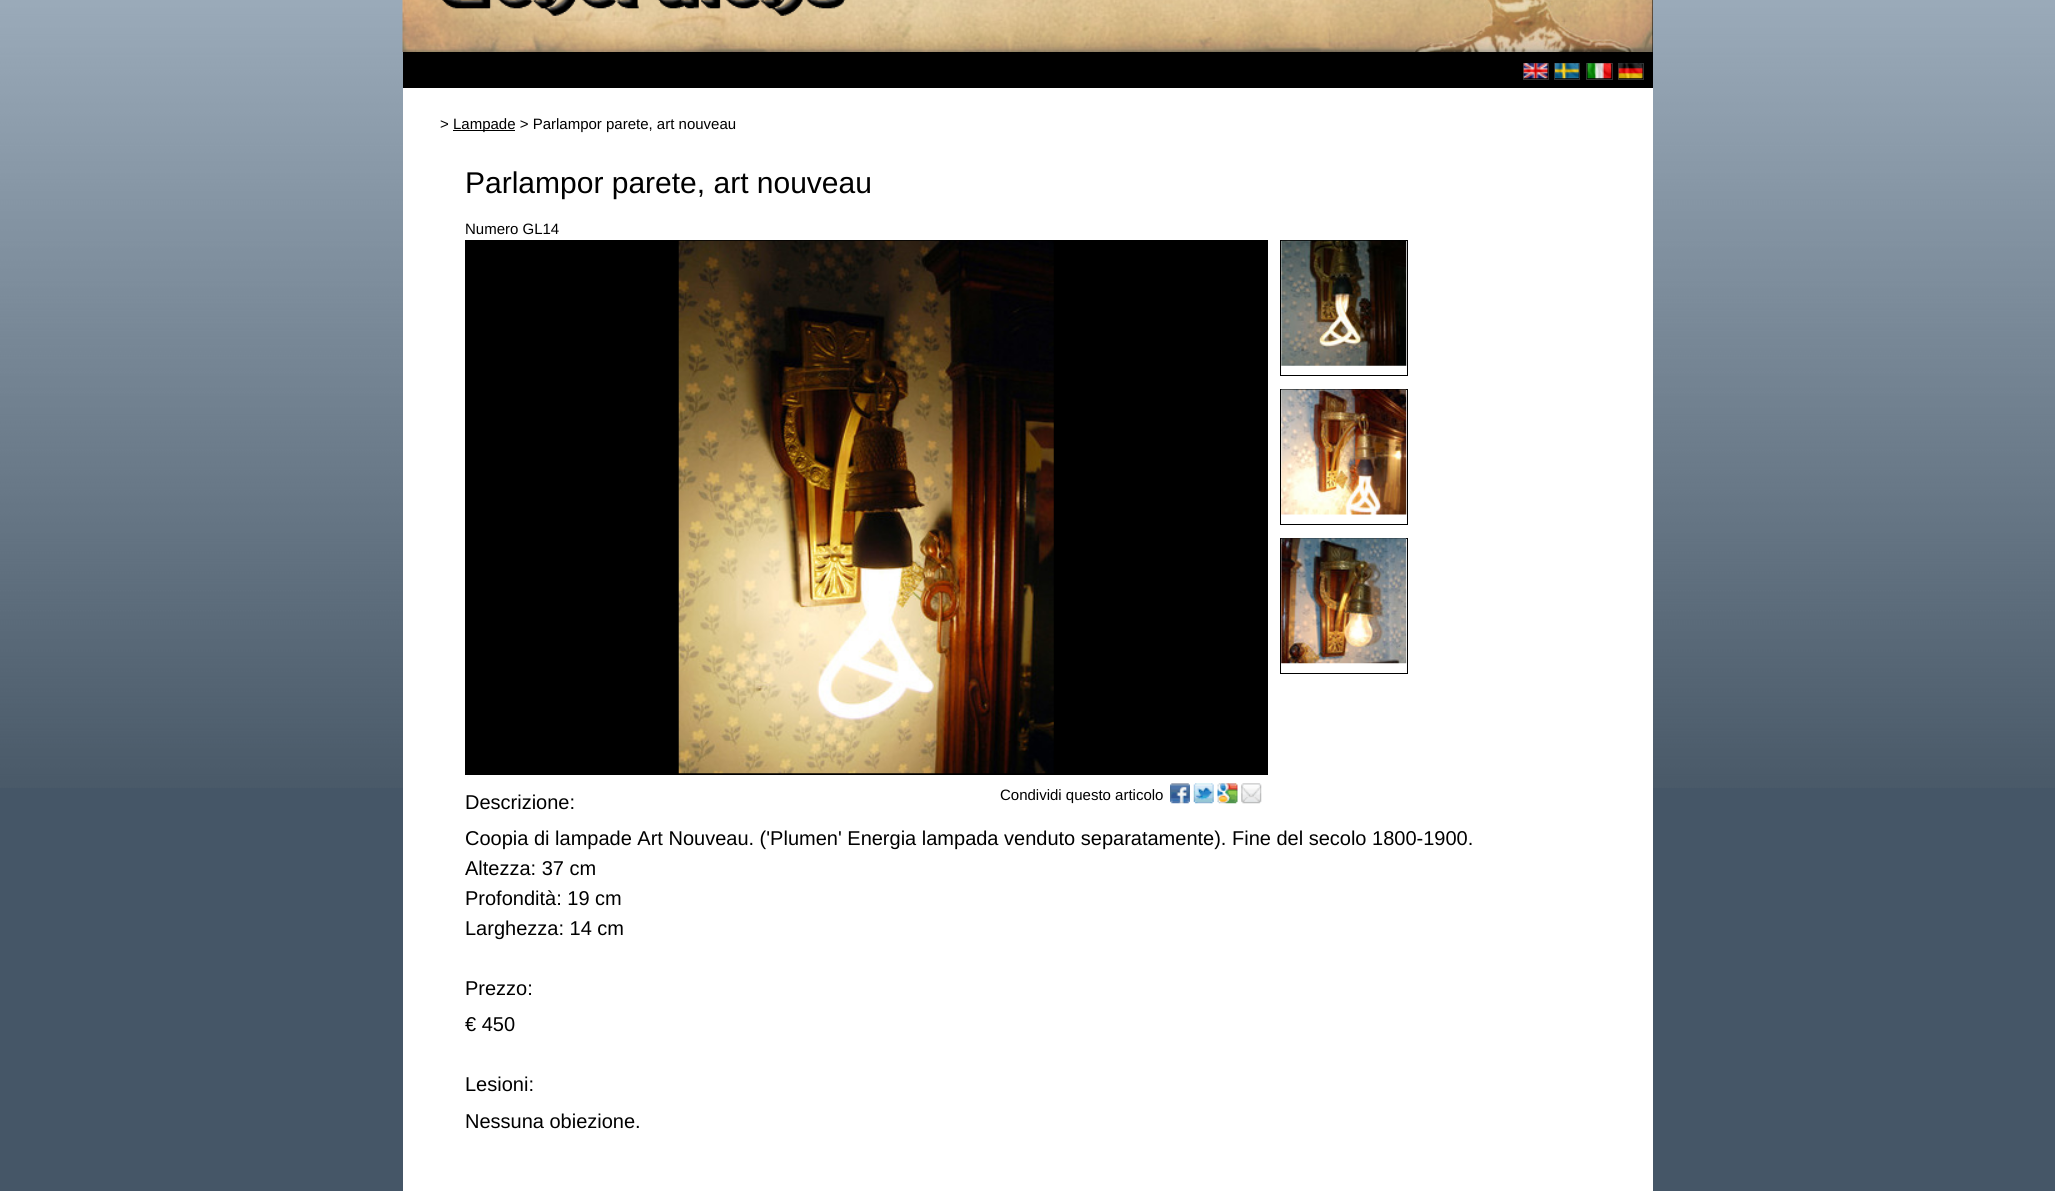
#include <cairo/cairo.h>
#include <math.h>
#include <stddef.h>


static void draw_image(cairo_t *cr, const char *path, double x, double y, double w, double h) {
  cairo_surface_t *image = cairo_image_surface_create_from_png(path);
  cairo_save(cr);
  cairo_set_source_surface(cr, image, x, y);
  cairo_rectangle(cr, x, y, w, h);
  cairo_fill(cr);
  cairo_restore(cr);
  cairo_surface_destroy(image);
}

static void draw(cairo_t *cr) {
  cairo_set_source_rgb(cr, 69 / 255.0, 86 / 255.0, 103 / 255.0);
  cairo_paint(cr);
  draw_image(cr, "images/1.png", 0, 0, 2055, 788);
  cairo_set_source_rgb(cr, 1, 1, 1);
  cairo_rectangle(cr, 403, 88, 1250, 1103);
  cairo_fill(cr);
  cairo_set_source_rgb(cr, 0, 0, 0);
  cairo_rectangle(cr, 403, 0, 1250, 88);
  cairo_fill(cr);
  draw_image(cr, "images/2.png", 402, 0, 1251, 52);
  draw_image(cr, "images/3.png", 442, 0, 404, 16);
  cairo_rectangle(cr, 1523.5, 63.5, 25, 16);
  cairo_set_source_rgb(cr, 51 / 255.0, 51 / 255.0, 51 / 255.0);
  cairo_set_line_width(cr, 1);
  cairo_stroke(cr);
  draw_image(cr, "images/4.png", 1523, 63, 25, 16);
  cairo_rectangle(cr, 1554.5, 63.5, 25, 16);
  cairo_stroke(cr);
  draw_image(cr, "images/5.png", 1555, 63, 24, 16);
  cairo_rectangle(cr, 1586.5, 63.5, 26, 16);
  cairo_stroke(cr);
  draw_image(cr, "images/6.png", 1587, 63, 25, 16);
  cairo_rectangle(cr, 1618.5, 63.5, 25, 16);
  cairo_stroke(cr);
  draw_image(cr, "images/7.png", 1618, 63, 25, 16);
  cairo_set_source_rgb(cr, 0, 0, 0);
  cairo_rectangle(cr, 453, 130, 62, 1);
  cairo_fill(cr);
  cairo_rectangle(cr, 465, 240, 803, 535);
  cairo_fill(cr);
  draw_image(cr, "images/8.png", 678, 240, 376, 534);
  cairo_rectangle(cr, 1280.5, 240.5, 127, 135);
  cairo_stroke(cr);
  draw_image(cr, "images/9.png", 1281, 240, 126, 126);
  cairo_rectangle(cr, 1280.5, 389.5, 127, 135);
  cairo_stroke(cr);
  draw_image(cr, "images/10.png", 1281, 389, 126, 126);
  cairo_rectangle(cr, 1280.5, 538.5, 127, 135);
  cairo_stroke(cr);
  draw_image(cr, "images/11.png", 1281, 538, 126, 126);
  draw_image(cr, "images/12.png", 1170, 783, 20, 21);
  draw_image(cr, "images/13.png", 1193, 783, 21, 21);
  draw_image(cr, "images/14.png", 1217, 783, 21, 21);
  draw_image(cr, "images/15.png", 1241, 783, 21, 21);
  cairo_select_font_face(cr, "Liberation Sans", CAIRO_FONT_SLANT_NORMAL, CAIRO_FONT_WEIGHT_NORMAL);
  cairo_set_font_size(cr, 15);
  cairo_move_to(cr, 440, 129);
  cairo_show_text(cr, ">");
  cairo_move_to(cr, 453, 129);
  cairo_show_text(cr, "Lampade > Parlampor parete, art nouveau");
  cairo_set_font_size(cr, 30);
  cairo_move_to(cr, 465, 193);
  cairo_show_text(cr, "Parlampor parete, art nouveau");
  cairo_set_font_size(cr, 15);
  cairo_move_to(cr, 465, 234);
  cairo_show_text(cr, "Numero GL14");
  cairo_move_to(cr, 1000, 800);
  cairo_show_text(cr, "Condividi questo articolo");
  cairo_set_font_size(cr, 20);
  cairo_move_to(cr, 465, 809);
  cairo_show_text(cr, "Descrizione:");
  cairo_move_to(cr, 465, 845);
  cairo_show_text(cr, "Coopia di lampade Art Nouveau. ('Plumen' Energia lampada venduto separatamente). Fine del secolo 1800-1900.");
  cairo_move_to(cr, 465, 875);
  cairo_show_text(cr, "Altezza: 37 cm");
  cairo_move_to(cr, 465, 905);
  cairo_show_text(cr, "Profondità: 19 cm");
  cairo_move_to(cr, 465, 935);
  cairo_show_text(cr, "Larghezza: 14 cm");
  cairo_move_to(cr, 465, 995);
  cairo_show_text(cr, "Prezzo:");
  cairo_move_to(cr, 465, 1031);
  cairo_show_text(cr, "€ 450");
  cairo_move_to(cr, 465, 1091);
  cairo_show_text(cr, "Lesioni:");
  cairo_move_to(cr, 465, 1128);
  cairo_show_text(cr, "Nessuna obiezione.");
}

int main(void) {
  cairo_surface_t *surface = cairo_image_surface_create(CAIRO_FORMAT_RGB24, 2055, 1191);
  cairo_t *cr = cairo_create(surface);
  cairo_font_options_t *options = cairo_font_options_create();
  cairo_font_options_set_hint_metrics(options, CAIRO_HINT_METRICS_OFF);
  cairo_font_options_set_hint_style(options, CAIRO_HINT_STYLE_NONE);
  cairo_set_font_options(cr, options);
  cairo_set_miter_limit(cr, 4);
  draw(cr);
  cairo_surface_write_to_png(surface, "out.png");
  cairo_font_options_destroy(options);
  cairo_destroy(cr);
  cairo_surface_destroy(surface);
  return 0;
}
